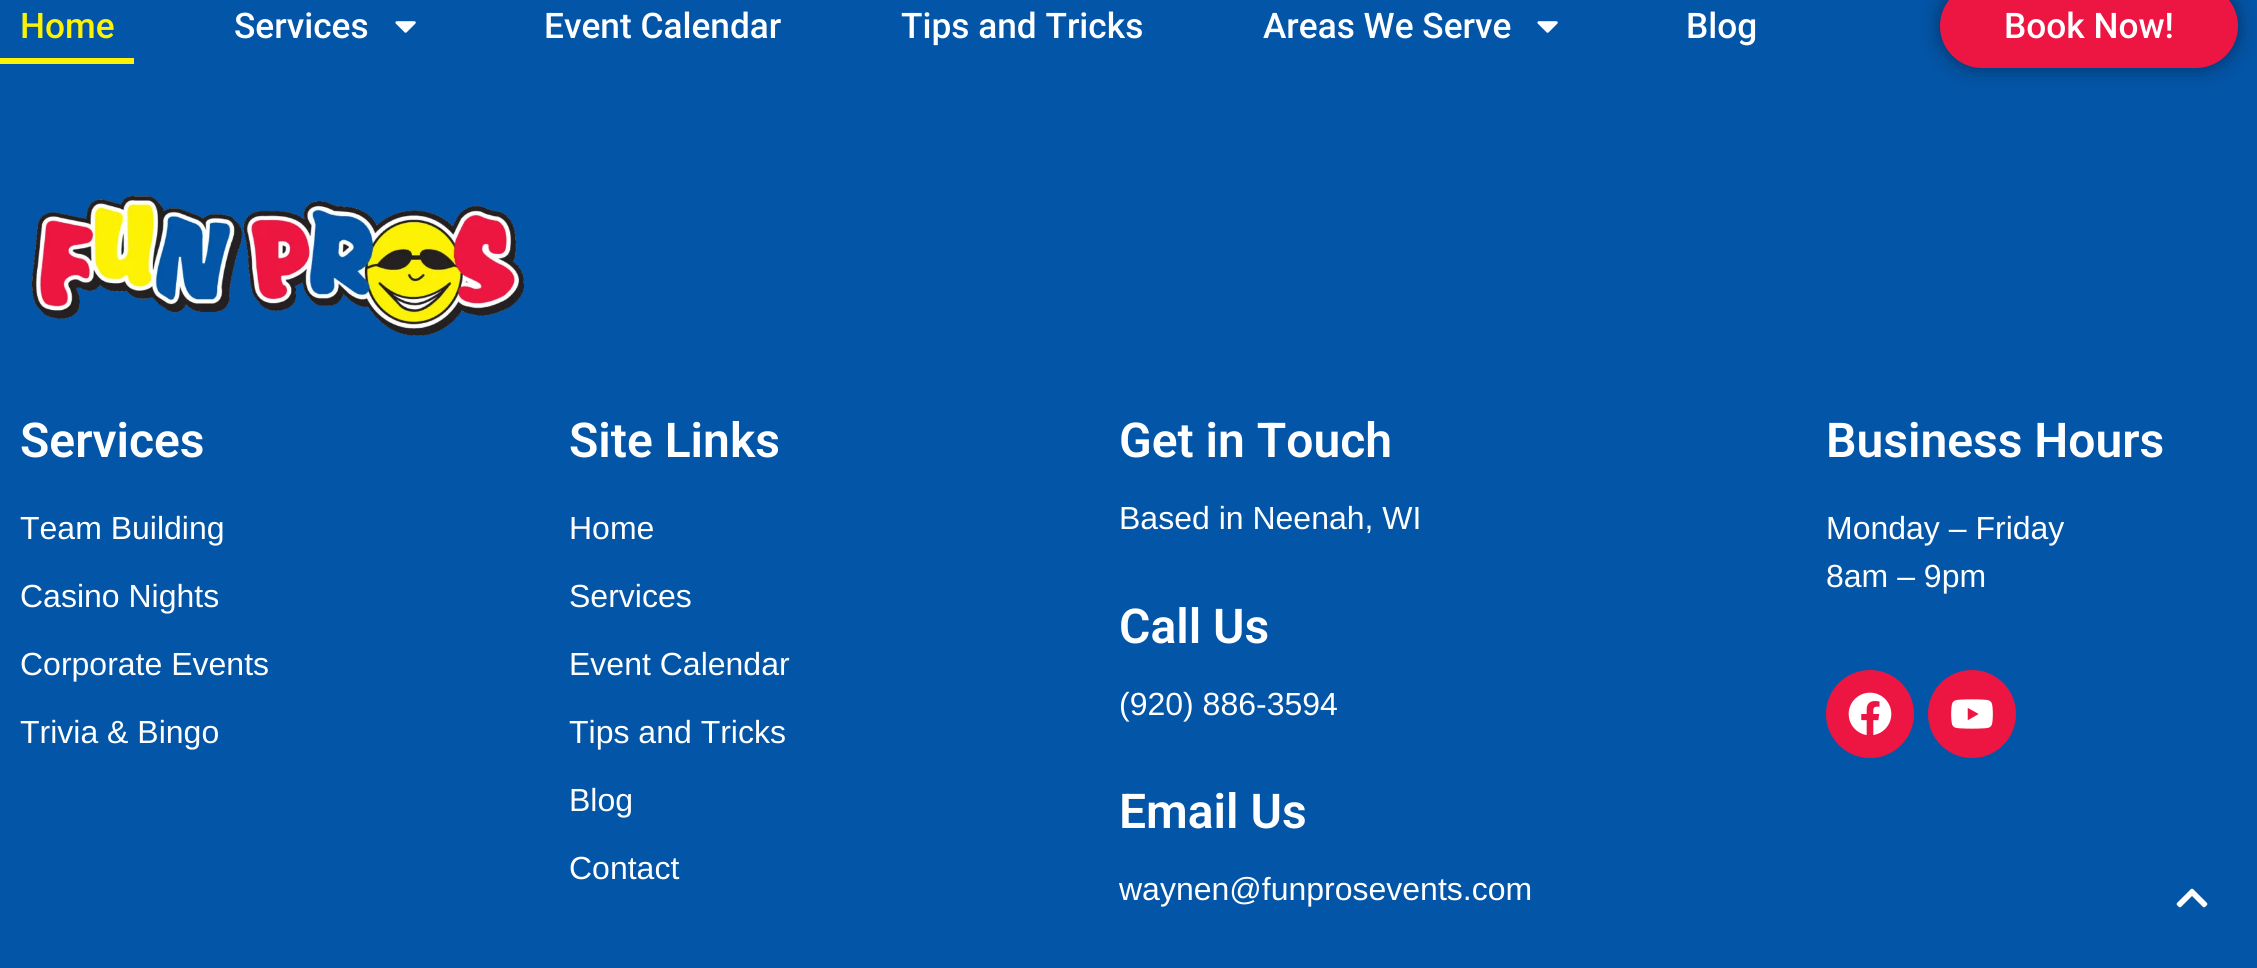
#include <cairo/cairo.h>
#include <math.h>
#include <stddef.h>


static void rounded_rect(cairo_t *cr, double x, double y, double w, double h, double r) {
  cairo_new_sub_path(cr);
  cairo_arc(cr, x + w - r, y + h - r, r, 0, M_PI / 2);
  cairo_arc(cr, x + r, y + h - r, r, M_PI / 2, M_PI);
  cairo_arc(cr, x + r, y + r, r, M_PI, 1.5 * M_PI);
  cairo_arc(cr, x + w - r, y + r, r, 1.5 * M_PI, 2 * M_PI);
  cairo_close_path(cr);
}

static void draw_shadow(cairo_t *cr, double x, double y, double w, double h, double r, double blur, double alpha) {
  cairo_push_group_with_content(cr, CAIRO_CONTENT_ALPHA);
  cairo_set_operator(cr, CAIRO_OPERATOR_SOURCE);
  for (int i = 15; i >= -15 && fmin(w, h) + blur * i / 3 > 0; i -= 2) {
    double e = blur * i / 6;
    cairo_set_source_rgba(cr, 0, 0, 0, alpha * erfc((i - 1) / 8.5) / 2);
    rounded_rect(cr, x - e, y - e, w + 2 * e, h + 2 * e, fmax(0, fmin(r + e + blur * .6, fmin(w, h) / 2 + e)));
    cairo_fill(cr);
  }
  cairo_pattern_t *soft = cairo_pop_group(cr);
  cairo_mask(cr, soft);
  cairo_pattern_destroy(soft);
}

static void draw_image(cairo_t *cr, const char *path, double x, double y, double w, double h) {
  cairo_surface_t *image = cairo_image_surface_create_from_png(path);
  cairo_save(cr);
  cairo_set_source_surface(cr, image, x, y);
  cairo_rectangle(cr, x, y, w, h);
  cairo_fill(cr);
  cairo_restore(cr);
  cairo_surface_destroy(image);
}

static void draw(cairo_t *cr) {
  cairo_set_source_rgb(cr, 3 / 255.0, 85 / 255.0, 167 / 255.0);
  cairo_paint(cr);
  cairo_set_source_rgb(cr, 252 / 255.0, 242 / 255.0, 4 / 255.0);
  cairo_rectangle(cr, 0, 58, 134, 6);
  cairo_fill(cr);
  draw_image(cr, "images/1.png", 395, 21, 21, 12);
  draw_image(cr, "images/1.png", 1537, 21, 21, 12);
  cairo_set_source_rgb(cr, 0, 0, 0);
  draw_shadow(cr, 1940, -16, 298, 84, 42, 10, 0.41);
  cairo_set_source_rgb(cr, 237 / 255.0, 22 / 255.0, 66 / 255.0);
  rounded_rect(cr, 1940, -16, 298, 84, 42);
  cairo_fill(cr);
  draw_image(cr, "images/2.png", 2176, 888, 32, 20);
  draw_image(cr, "images/3.png", 32, 196, 492, 140);
  cairo_arc(cr, 1870, 714, 44, 0, 2 * M_PI);
  cairo_fill(cr);
  draw_image(cr, "images/4.png", 1848, 692, 44, 43);
  cairo_arc(cr, 1972, 714, 44, 0, 2 * M_PI);
  cairo_fill(cr);
  draw_image(cr, "images/5.png", 1951, 699, 42, 30);
  cairo_select_font_face(cr, "Roboto Medium", CAIRO_FONT_SLANT_NORMAL, CAIRO_FONT_WEIGHT_NORMAL);
  cairo_set_font_size(cr, 35.25);
  cairo_set_source_rgb(cr, 252 / 255.0, 242 / 255.0, 4 / 255.0);
  cairo_move_to(cr, 20, 38);
  cairo_show_text(cr, "Home");
  cairo_set_source_rgb(cr, 1, 1, 1);
  cairo_move_to(cr, 234, 38);
  cairo_show_text(cr, "Services");
  cairo_move_to(cr, 544, 38);
  cairo_show_text(cr, "Event Calendar");
  cairo_move_to(cr, 901, 38);
  cairo_show_text(cr, "Tips and Tricks");
  cairo_move_to(cr, 1263, 38);
  cairo_show_text(cr, "Areas We Serve");
  cairo_move_to(cr, 1686, 38);
  cairo_show_text(cr, "Blog");
  cairo_move_to(cr, 2004, 38);
  cairo_show_text(cr, "Book Now!");
  cairo_select_font_face(cr, "Roboto SemiBold", CAIRO_FONT_SLANT_NORMAL, CAIRO_FONT_WEIGHT_NORMAL);
  cairo_set_font_size(cr, 48);
  cairo_move_to(cr, 20, 457);
  cairo_show_text(cr, "Services");
  cairo_select_font_face(cr, "Liberation Sans", CAIRO_FONT_SLANT_NORMAL, CAIRO_FONT_WEIGHT_NORMAL);
  cairo_set_font_size(cr, 32);
  cairo_move_to(cr, 20, 539);
  cairo_show_text(cr, "Team Building");
  cairo_move_to(cr, 20, 607);
  cairo_show_text(cr, "Casino Nights");
  cairo_move_to(cr, 20, 675);
  cairo_show_text(cr, "Corporate Events");
  cairo_move_to(cr, 20, 743);
  cairo_show_text(cr, "Trivia & Bingo");
  cairo_select_font_face(cr, "Roboto SemiBold", CAIRO_FONT_SLANT_NORMAL, CAIRO_FONT_WEIGHT_NORMAL);
  cairo_set_font_size(cr, 48);
  cairo_move_to(cr, 569, 457);
  cairo_show_text(cr, "Site Links");
  cairo_select_font_face(cr, "Liberation Sans", CAIRO_FONT_SLANT_NORMAL, CAIRO_FONT_WEIGHT_NORMAL);
  cairo_set_font_size(cr, 32);
  cairo_move_to(cr, 569, 539);
  cairo_show_text(cr, "Home");
  cairo_move_to(cr, 569, 607);
  cairo_show_text(cr, "Services");
  cairo_move_to(cr, 569, 675);
  cairo_show_text(cr, "Event Calendar");
  cairo_move_to(cr, 569, 743);
  cairo_show_text(cr, "Tips and Tricks");
  cairo_move_to(cr, 569, 811);
  cairo_show_text(cr, "Blog");
  cairo_move_to(cr, 569, 879);
  cairo_show_text(cr, "Contact");
  cairo_select_font_face(cr, "Roboto SemiBold", CAIRO_FONT_SLANT_NORMAL, CAIRO_FONT_WEIGHT_NORMAL);
  cairo_set_font_size(cr, 48);
  cairo_move_to(cr, 1119, 457);
  cairo_show_text(cr, "Get in Touch");
  cairo_select_font_face(cr, "Liberation Sans", CAIRO_FONT_SLANT_NORMAL, CAIRO_FONT_WEIGHT_NORMAL);
  cairo_set_font_size(cr, 32);
  cairo_move_to(cr, 1119, 529);
  cairo_show_text(cr, "Based in Neenah, WI");
  cairo_select_font_face(cr, "Roboto SemiBold", CAIRO_FONT_SLANT_NORMAL, CAIRO_FONT_WEIGHT_NORMAL);
  cairo_set_font_size(cr, 48);
  cairo_move_to(cr, 1119, 643);
  cairo_show_text(cr, "Call Us");
  cairo_select_font_face(cr, "Liberation Sans", CAIRO_FONT_SLANT_NORMAL, CAIRO_FONT_WEIGHT_NORMAL);
  cairo_set_font_size(cr, 32);
  cairo_move_to(cr, 1119, 715);
  cairo_show_text(cr, "(920) 886-3594");
  cairo_select_font_face(cr, "Roboto SemiBold", CAIRO_FONT_SLANT_NORMAL, CAIRO_FONT_WEIGHT_NORMAL);
  cairo_set_font_size(cr, 48);
  cairo_move_to(cr, 1119, 828);
  cairo_show_text(cr, "Email Us");
  cairo_select_font_face(cr, "Liberation Sans", CAIRO_FONT_SLANT_NORMAL, CAIRO_FONT_WEIGHT_NORMAL);
  cairo_set_font_size(cr, 32);
  cairo_move_to(cr, 1119, 900);
  cairo_show_text(cr, "waynen@funprosevents.com");
  cairo_select_font_face(cr, "Roboto SemiBold", CAIRO_FONT_SLANT_NORMAL, CAIRO_FONT_WEIGHT_NORMAL);
  cairo_set_font_size(cr, 48);
  cairo_move_to(cr, 1826, 457);
  cairo_show_text(cr, "Business Hours");
  cairo_select_font_face(cr, "Liberation Sans", CAIRO_FONT_SLANT_NORMAL, CAIRO_FONT_WEIGHT_NORMAL);
  cairo_set_font_size(cr, 32);
  cairo_move_to(cr, 1826, 539);
  cairo_show_text(cr, "Monday – Friday");
  cairo_move_to(cr, 1826, 587);
  cairo_show_text(cr, "8am – 9pm");
}

int main(void) {
  cairo_surface_t *surface = cairo_image_surface_create(CAIRO_FORMAT_RGB24, 2257, 968);
  cairo_t *cr = cairo_create(surface);
  cairo_font_options_t *options = cairo_font_options_create();
  cairo_font_options_set_hint_metrics(options, CAIRO_HINT_METRICS_OFF);
  cairo_font_options_set_hint_style(options, CAIRO_HINT_STYLE_NONE);
  cairo_set_font_options(cr, options);
  cairo_set_miter_limit(cr, 4);
  draw(cr);
  cairo_surface_write_to_png(surface, "out.png");
  cairo_font_options_destroy(options);
  cairo_destroy(cr);
  cairo_surface_destroy(surface);
  return 0;
}
